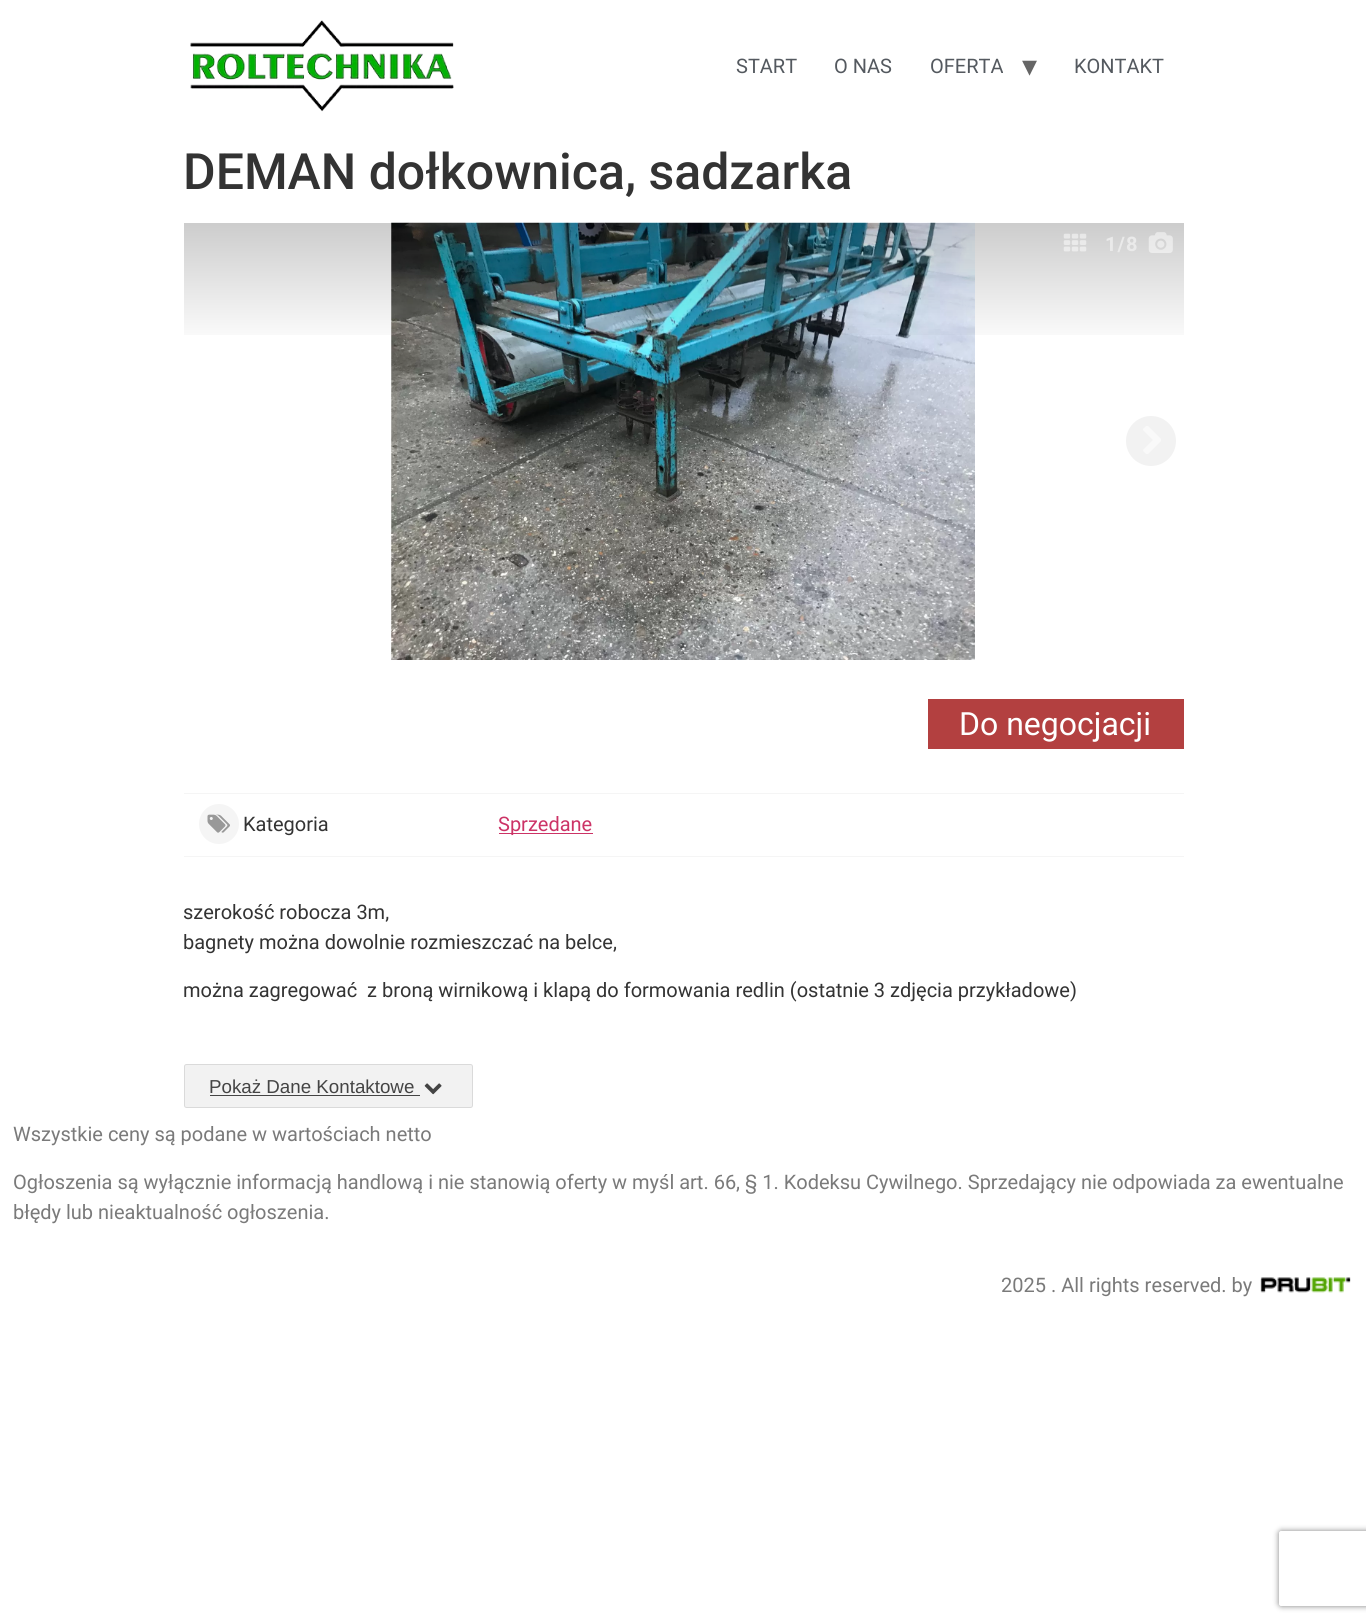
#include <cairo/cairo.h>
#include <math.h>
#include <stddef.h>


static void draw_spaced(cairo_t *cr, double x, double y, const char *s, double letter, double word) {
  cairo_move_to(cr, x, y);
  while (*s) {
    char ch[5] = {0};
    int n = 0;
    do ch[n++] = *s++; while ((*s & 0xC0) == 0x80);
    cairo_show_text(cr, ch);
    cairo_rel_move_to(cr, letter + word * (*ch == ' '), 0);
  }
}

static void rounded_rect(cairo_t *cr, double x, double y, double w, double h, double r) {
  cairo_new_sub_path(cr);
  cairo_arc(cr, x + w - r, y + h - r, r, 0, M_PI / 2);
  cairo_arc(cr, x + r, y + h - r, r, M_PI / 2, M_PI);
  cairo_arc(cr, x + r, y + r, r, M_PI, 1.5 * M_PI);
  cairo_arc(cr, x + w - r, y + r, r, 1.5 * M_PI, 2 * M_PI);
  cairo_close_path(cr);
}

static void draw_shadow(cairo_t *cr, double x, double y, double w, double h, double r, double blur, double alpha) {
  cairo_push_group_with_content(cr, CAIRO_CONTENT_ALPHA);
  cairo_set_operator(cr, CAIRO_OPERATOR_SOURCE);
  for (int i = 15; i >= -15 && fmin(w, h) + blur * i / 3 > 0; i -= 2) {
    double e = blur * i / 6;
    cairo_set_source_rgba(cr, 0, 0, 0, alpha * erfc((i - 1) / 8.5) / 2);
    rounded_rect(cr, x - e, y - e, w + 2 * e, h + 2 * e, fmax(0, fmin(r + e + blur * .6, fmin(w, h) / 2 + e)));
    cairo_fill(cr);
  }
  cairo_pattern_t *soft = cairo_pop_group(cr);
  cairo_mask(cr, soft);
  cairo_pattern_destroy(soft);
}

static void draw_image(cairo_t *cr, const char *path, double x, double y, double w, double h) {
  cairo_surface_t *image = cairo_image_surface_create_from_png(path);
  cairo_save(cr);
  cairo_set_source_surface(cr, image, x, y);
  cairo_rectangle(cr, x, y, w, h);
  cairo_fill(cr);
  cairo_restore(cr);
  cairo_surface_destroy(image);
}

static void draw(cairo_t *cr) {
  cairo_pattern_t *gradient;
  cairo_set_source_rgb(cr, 1, 1, 1);
  cairo_paint(cr);
  draw_image(cr, "images/1.png", 190, 20, 264, 92);
  draw_image(cr, "images/2.png", 391, 222, 584, 438);
  gradient = cairo_pattern_create_linear(684, 222, 684, 660);
  cairo_pattern_add_color_stop_rgba(gradient, 0, 0, 0, 0, 0.2);
  cairo_pattern_add_color_stop_rgba(gradient, 0.29, 0, 0, 0, 0);
  cairo_set_source(cr, gradient);
  cairo_pattern_destroy(gradient);
  cairo_rectangle(cr, 184, 223, 1000, 112);
  cairo_fill(cr);
  draw_image(cr, "images/3.png", 1063, 233, 24, 19);
  draw_image(cr, "images/4.png", 1148, 232, 25, 21);
  cairo_set_source_rgb(cr, 242 / 255.0, 242 / 255.0, 242 / 255.0);
  cairo_arc(cr, 1151, 441, 25, 0, 2 * M_PI);
  cairo_fill(cr);
  draw_image(cr, "images/5.png", 1143, 426, 18, 28);
  cairo_set_source_rgb(cr, 179 / 255.0, 64 / 255.0, 64 / 255.0);
  cairo_rectangle(cr, 928, 699, 256, 50);
  cairo_fill(cr);
  cairo_set_source_rgb(cr, 245 / 255.0, 245 / 255.0, 245 / 255.0);
  cairo_rectangle(cr, 184, 793, 1000, 1);
  cairo_fill(cr);
  cairo_rectangle(cr, 184, 856, 1000, 1);
  cairo_fill(cr);
  cairo_arc(cr, 219, 824, 20, 0, 2 * M_PI);
  cairo_fill(cr);
  draw_image(cr, "images/6.png", 207, 814, 23, 19);
  cairo_set_source_rgb(cr, 204 / 255.0, 51 / 255.0, 102 / 255.0);
  cairo_rectangle(cr, 499, 833, 94, 1);
  cairo_fill(cr);
  cairo_set_source_rgb(cr, 242 / 255.0, 242 / 255.0, 242 / 255.0);
  rounded_rect(cr, 184, 1064, 289, 44, 2.5);
  cairo_fill(cr);
  rounded_rect(cr, 184.5, 1064.5, 288, 43, 2);
  cairo_set_source_rgba(cr, 0, 0, 0, 0.1);
  cairo_set_line_width(cr, 1);
  cairo_stroke(cr);
  cairo_set_source_rgb(cr, 68 / 255.0, 68 / 255.0, 68 / 255.0);
  cairo_rectangle(cr, 210, 1095, 210, 1);
  cairo_fill(cr);
  draw_image(cr, "images/7.png", 424, 1083, 18, 12);
  draw_image(cr, "images/8.png", 1260, 1277, 91, 16);
  cairo_save(cr);
  cairo_set_fill_rule(cr, CAIRO_FILL_RULE_EVEN_ODD);
  cairo_new_path(cr);
  cairo_move_to(cr, 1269, 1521);
  cairo_line_to(cr, 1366, 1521);
  cairo_line_to(cr, 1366, 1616);
  cairo_line_to(cr, 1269, 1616);
  cairo_close_path(cr);
  cairo_move_to(cr, 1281.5, 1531);
  cairo_line_to(cr, 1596.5, 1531);
  cairo_curve_to(cr, 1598, 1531, 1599, 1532, 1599, 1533.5);
  cairo_line_to(cr, 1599, 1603.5);
  cairo_curve_to(cr, 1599, 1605, 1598, 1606, 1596.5, 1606);
  cairo_line_to(cr, 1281.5, 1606);
  cairo_curve_to(cr, 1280, 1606, 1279, 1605, 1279, 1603.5);
  cairo_line_to(cr, 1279, 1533.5);
  cairo_curve_to(cr, 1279, 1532, 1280, 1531, 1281.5, 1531);
  cairo_close_path(cr);
  cairo_clip(cr);
  cairo_set_source_rgb(cr, 128 / 255.0, 128 / 255.0, 128 / 255.0);
  draw_shadow(cr, 1279, 1531, 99, 75, 2.5, 3, 1);
  cairo_restore(cr);
  cairo_select_font_face(cr, "Roboto", CAIRO_FONT_SLANT_NORMAL, CAIRO_FONT_WEIGHT_NORMAL);
  cairo_set_font_size(cr, 20);
  cairo_set_source_rgb(cr, 84 / 255.0, 89 / 255.0, 95 / 255.0);
  cairo_move_to(cr, 736, 73);
  cairo_show_text(cr, "START");
  cairo_move_to(cr, 834, 73);
  cairo_show_text(cr, "O NAS");
  cairo_move_to(cr, 930, 73);
  cairo_show_text(cr, "OFERTA");
  cairo_select_font_face(cr, "DejaVu Sans", CAIRO_FONT_SLANT_NORMAL, CAIRO_FONT_WEIGHT_NORMAL);
  cairo_set_font_size(cr, 30);
  cairo_set_source_rgb(cr, 102 / 255.0, 102 / 255.0, 102 / 255.0);
  cairo_move_to(cr, 1022, 76);
  cairo_show_text(cr, "▾");
  cairo_select_font_face(cr, "Roboto", CAIRO_FONT_SLANT_NORMAL, CAIRO_FONT_WEIGHT_NORMAL);
  cairo_set_font_size(cr, 20);
  cairo_set_source_rgb(cr, 84 / 255.0, 89 / 255.0, 95 / 255.0);
  cairo_move_to(cr, 1074, 73);
  cairo_show_text(cr, "KONTAKT");
  cairo_select_font_face(cr, "Roboto Medium", CAIRO_FONT_SLANT_NORMAL, CAIRO_FONT_WEIGHT_NORMAL);
  cairo_set_font_size(cr, 50);
  cairo_set_source_rgb(cr, 51 / 255.0, 51 / 255.0, 51 / 255.0);
  cairo_move_to(cr, 183, 189);
  cairo_show_text(cr, "DEMAN dołkownica, sadzarka");
  cairo_select_font_face(cr, "Roboto", CAIRO_FONT_SLANT_NORMAL, CAIRO_FONT_WEIGHT_BOLD);
  cairo_set_font_size(cr, 20);
  cairo_set_source_rgb(cr, 234 / 255.0, 234 / 255.0, 234 / 255.0);
  draw_spaced(cr, 1105, 251, "1/8", 1, 0);
  cairo_select_font_face(cr, "Roboto", CAIRO_FONT_SLANT_NORMAL, CAIRO_FONT_WEIGHT_NORMAL);
  cairo_set_font_size(cr, 32);
  cairo_set_source_rgb(cr, 1, 1, 1);
  cairo_move_to(cr, 959, 735);
  cairo_show_text(cr, "Do negocjacji");
  cairo_set_font_size(cr, 20);
  cairo_set_source_rgb(cr, 51 / 255.0, 51 / 255.0, 51 / 255.0);
  cairo_move_to(cr, 243, 831);
  cairo_show_text(cr, "Kategoria");
  cairo_set_source_rgb(cr, 204 / 255.0, 51 / 255.0, 102 / 255.0);
  cairo_move_to(cr, 498, 831);
  cairo_show_text(cr, "Sprzedane");
  cairo_set_source_rgb(cr, 51 / 255.0, 51 / 255.0, 51 / 255.0);
  cairo_move_to(cr, 183, 919);
  cairo_show_text(cr, "szerokość robocza 3m,");
  cairo_move_to(cr, 183, 949);
  cairo_show_text(cr, "bagnety można dowolnie rozmieszczać na belce,");
  cairo_move_to(cr, 183, 997);
  cairo_show_text(cr, "można zagregować  z broną wirnikową i klapą do formowania redlin (ostatnie 3 zdjęcia przykładowe)");
  cairo_select_font_face(cr, "Liberation Sans", CAIRO_FONT_SLANT_NORMAL, CAIRO_FONT_WEIGHT_NORMAL);
  cairo_set_font_size(cr, 18.75);
  cairo_set_source_rgb(cr, 68 / 255.0, 68 / 255.0, 68 / 255.0);
  cairo_move_to(cr, 209, 1093);
  cairo_show_text(cr, "Pokaż Dane Kontaktowe");
  cairo_select_font_face(cr, "Roboto", CAIRO_FONT_SLANT_NORMAL, CAIRO_FONT_WEIGHT_NORMAL);
  cairo_set_font_size(cr, 20);
  cairo_set_source_rgb(cr, 122 / 255.0, 122 / 255.0, 122 / 255.0);
  cairo_move_to(cr, 13, 1141);
  cairo_show_text(cr, "Wszystkie ceny są podane w wartościach netto");
  cairo_move_to(cr, 13, 1189);
  cairo_show_text(cr, "Ogłoszenia są wyłącznie informacją handlową i nie stanowią oferty w myśl art. 66, § 1. Kodeksu Cywilnego. Sprzedający nie odpowiada za ewentualne");
  cairo_move_to(cr, 13, 1219);
  cairo_show_text(cr, "błędy lub nieaktualność ogłoszenia.");
  cairo_move_to(cr, 1001, 1292);
  cairo_show_text(cr, "2025 . All rights reserved. by");
}

int main(void) {
  cairo_surface_t *surface = cairo_image_surface_create(CAIRO_FORMAT_RGB24, 1366, 1623);
  cairo_t *cr = cairo_create(surface);
  cairo_font_options_t *options = cairo_font_options_create();
  cairo_font_options_set_hint_metrics(options, CAIRO_HINT_METRICS_OFF);
  cairo_font_options_set_hint_style(options, CAIRO_HINT_STYLE_NONE);
  cairo_set_font_options(cr, options);
  cairo_set_miter_limit(cr, 4);
  draw(cr);
  cairo_surface_write_to_png(surface, "out.png");
  cairo_font_options_destroy(options);
  cairo_destroy(cr);
  cairo_surface_destroy(surface);
  return 0;
}
